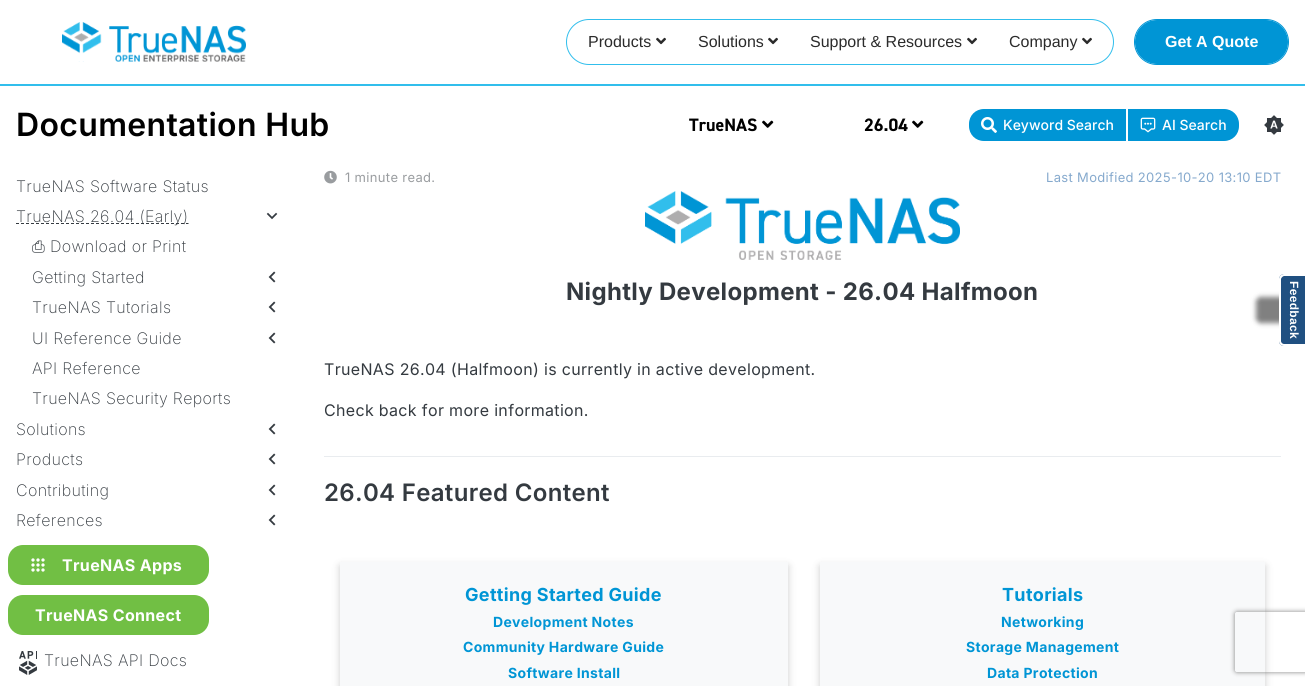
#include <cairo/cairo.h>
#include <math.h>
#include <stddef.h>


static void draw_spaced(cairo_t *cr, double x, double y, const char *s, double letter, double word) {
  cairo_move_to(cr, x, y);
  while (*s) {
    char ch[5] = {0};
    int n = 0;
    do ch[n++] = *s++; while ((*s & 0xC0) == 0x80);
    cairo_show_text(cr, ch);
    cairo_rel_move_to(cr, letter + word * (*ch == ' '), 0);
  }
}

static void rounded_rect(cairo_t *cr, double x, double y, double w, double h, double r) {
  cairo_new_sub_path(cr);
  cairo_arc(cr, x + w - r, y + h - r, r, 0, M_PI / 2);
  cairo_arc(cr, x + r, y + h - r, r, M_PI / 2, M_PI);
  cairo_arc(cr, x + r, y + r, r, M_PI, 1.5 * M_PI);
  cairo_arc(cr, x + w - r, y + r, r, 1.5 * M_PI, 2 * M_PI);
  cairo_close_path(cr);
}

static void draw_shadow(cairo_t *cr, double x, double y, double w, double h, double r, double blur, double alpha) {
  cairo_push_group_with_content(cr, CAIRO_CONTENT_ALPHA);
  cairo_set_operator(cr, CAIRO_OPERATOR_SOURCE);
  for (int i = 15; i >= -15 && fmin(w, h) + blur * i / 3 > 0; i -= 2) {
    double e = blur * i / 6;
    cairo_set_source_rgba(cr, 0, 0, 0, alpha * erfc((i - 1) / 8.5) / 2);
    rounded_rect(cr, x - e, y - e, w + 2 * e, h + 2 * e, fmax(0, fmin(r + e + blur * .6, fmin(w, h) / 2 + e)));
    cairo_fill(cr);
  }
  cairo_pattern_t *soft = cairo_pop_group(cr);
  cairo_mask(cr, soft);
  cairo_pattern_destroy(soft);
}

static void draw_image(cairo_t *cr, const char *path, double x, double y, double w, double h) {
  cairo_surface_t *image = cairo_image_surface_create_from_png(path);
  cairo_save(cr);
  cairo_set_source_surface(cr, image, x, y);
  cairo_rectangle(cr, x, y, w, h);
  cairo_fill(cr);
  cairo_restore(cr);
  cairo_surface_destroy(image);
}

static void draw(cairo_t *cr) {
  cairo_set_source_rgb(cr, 1, 1, 1);
  cairo_paint(cr);
  cairo_set_source_rgb(cr, 49 / 255.0, 190 / 255.0, 236 / 255.0);
  cairo_rectangle(cr, 0, 84, 1305, 2);
  cairo_fill(cr);
  draw_image(cr, "images/1.png", 62, 22, 184, 40);
  rounded_rect(cr, 566.5, 19.5, 547, 45, 22.5);
  cairo_set_line_width(cr, 1);
  cairo_stroke(cr);
  draw_image(cr, "images/2.png", 656, 37, 10, 8);
  draw_image(cr, "images/2.png", 768, 37, 10, 8);
  draw_image(cr, "images/2.png", 967, 37, 10, 8);
  draw_image(cr, "images/2.png", 1082, 37, 10, 8);
  rounded_rect(cr, 1134.5, 19.5, 154, 45, 22.5);
  cairo_set_source_rgb(cr, 0, 149 / 255.0, 213 / 255.0);
  cairo_stroke(cr);
  cairo_save(cr);
  rounded_rect(cr, 1135, 20, 153, 44, 22);
  cairo_clip(cr);
  rounded_rect(cr, 1134, 19, 155, 46, 23);
  cairo_fill(cr);
  cairo_restore(cr);
  draw_image(cr, "images/3.png", 762, 120, 12, 8);
  draw_image(cr, "images/3.png", 912, 120, 12, 8);
  cairo_new_path(cr);
  cairo_move_to(cr, 984, 109);
  cairo_line_to(cr, 1126, 109);
  cairo_line_to(cr, 1126, 141);
  cairo_line_to(cr, 984, 141);
  cairo_curve_to(cr, 975.5, 141, 969, 134.5, 969, 126);
  cairo_line_to(cr, 969, 124);
  cairo_curve_to(cr, 969, 115.5, 975.5, 109, 984, 109);
  cairo_close_path(cr);
  cairo_fill(cr);
  draw_image(cr, "images/4.png", 981, 117, 16, 16);
  cairo_new_path(cr);
  cairo_move_to(cr, 1128, 109);
  cairo_line_to(cr, 1224, 109);
  cairo_curve_to(cr, 1232.5, 109, 1239, 115.5, 1239, 124);
  cairo_line_to(cr, 1239, 126);
  cairo_curve_to(cr, 1239, 134.5, 1232.5, 141, 1224, 141);
  cairo_line_to(cr, 1128, 141);
  cairo_close_path(cr);
  cairo_fill(cr);
  draw_image(cr, "images/5.png", 1140, 117, 16, 16);
  draw_image(cr, "images/6.png", 1264, 115, 20, 20);
  cairo_new_path(cr);
  cairo_move_to(cr, 16, 223.5);
  cairo_line_to(cr, 188.5, 223.5);
  cairo_set_source_rgb(cr, 52 / 255.0, 58 / 255.0, 64 / 255.0);
  cairo_set_dash(cr, (double[]){3, 2}, 2, 0);
  cairo_stroke(cr);
  draw_image(cr, "images/7.png", 266, 212, 12, 8);
  draw_image(cr, "images/8.png", 268, 271, 8, 12);
  draw_image(cr, "images/8.png", 268, 301, 8, 12);
  draw_image(cr, "images/8.png", 268, 332, 8, 12);
  draw_image(cr, "images/8.png", 268, 423, 8, 12);
  draw_image(cr, "images/8.png", 268, 453, 8, 12);
  draw_image(cr, "images/8.png", 268, 484, 8, 12);
  draw_image(cr, "images/8.png", 268, 514, 8, 12);
  cairo_set_source_rgb(cr, 113 / 255.0, 191 / 255.0, 68 / 255.0);
  rounded_rect(cr, 8, 545, 201, 40, 15);
  cairo_fill(cr);
  draw_image(cr, "images/9.png", 31, 558, 14, 14);
  rounded_rect(cr, 8, 595, 201, 40, 15);
  cairo_fill(cr);
  draw_image(cr, "images/10.png", 19, 651, 18, 24);
  draw_image(cr, "images/11.png", 324, 170, 13, 14);
  draw_image(cr, "images/12.png", 645, 191, 315, 69);
  cairo_set_source_rgb(cr, 233 / 255.0, 236 / 255.0, 239 / 255.0);
  cairo_rectangle(cr, 324, 456, 957, 1);
  cairo_fill(cr);
  cairo_set_source_rgb(cr, 0, 0, 0);
  draw_shadow(cr, 340, 566, 448, 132, 0, 4, 0.2);
  cairo_set_source_rgb(cr, 248 / 255.0, 249 / 255.0, 250 / 255.0);
  cairo_rectangle(cr, 340, 562, 448, 124);
  cairo_fill(cr);
  cairo_set_source_rgb(cr, 0, 0, 0);
  draw_shadow(cr, 820, 566, 445, 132, 0, 4, 0.2);
  cairo_set_source_rgb(cr, 248 / 255.0, 249 / 255.0, 250 / 255.0);
  cairo_rectangle(cr, 820, 562, 445, 124);
  cairo_fill(cr);
  cairo_set_source_rgb(cr, 0, 0, 0);
  draw_shadow(cr, 1256, 297, 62, 26, 5, 2.5, 0.5);
  cairo_set_source_rgb(cr, 32 / 255.0, 80 / 255.0, 129 / 255.0);
  cairo_new_path(cr);
  cairo_move_to(cr, 1305, 274);
  cairo_line_to(cr, 1305, 346);
  cairo_line_to(cr, 1284, 346);
  cairo_curve_to(cr, 1281, 346, 1279, 344, 1279, 341);
  cairo_line_to(cr, 1279, 279);
  cairo_curve_to(cr, 1279, 277, 1281, 274, 1284, 274);
  cairo_close_path(cr);
  cairo_fill(cr);
  cairo_set_source_rgb(cr, 1, 1, 1);
  cairo_set_fill_rule(cr, CAIRO_FILL_RULE_EVEN_ODD);
  cairo_new_path(cr);
  cairo_move_to(cr, 1305, 274);
  cairo_line_to(cr, 1305, 346);
  cairo_line_to(cr, 1284, 346);
  cairo_curve_to(cr, 1281, 346, 1279, 344, 1279, 341);
  cairo_line_to(cr, 1279, 279);
  cairo_curve_to(cr, 1279, 277, 1281, 274, 1284, 274);
  cairo_close_path(cr);
  cairo_move_to(cr, 1305, 276);
  cairo_line_to(cr, 1305, 344);
  cairo_line_to(cr, 1284, 344);
  cairo_curve_to(cr, 1283, 344, 1281, 343, 1281, 341);
  cairo_line_to(cr, 1281, 279);
  cairo_curve_to(cr, 1281, 278, 1283, 276, 1284, 276);
  cairo_close_path(cr);
  cairo_fill(cr);
  cairo_save(cr);
  cairo_new_path(cr);
  cairo_move_to(cr, 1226, 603);
  cairo_line_to(cr, 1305, 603);
  cairo_line_to(cr, 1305, 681);
  cairo_line_to(cr, 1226, 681);
  cairo_close_path(cr);
  cairo_move_to(cr, 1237, 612);
  cairo_line_to(cr, 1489, 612);
  cairo_curve_to(cr, 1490, 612, 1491, 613, 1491, 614);
  cairo_line_to(cr, 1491, 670);
  cairo_curve_to(cr, 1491, 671, 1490, 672, 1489, 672);
  cairo_line_to(cr, 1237, 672);
  cairo_curve_to(cr, 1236, 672, 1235, 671, 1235, 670);
  cairo_line_to(cr, 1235, 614);
  cairo_curve_to(cr, 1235, 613, 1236, 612, 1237, 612);
  cairo_close_path(cr);
  cairo_clip(cr);
  cairo_set_source_rgb(cr, 128 / 255.0, 128 / 255.0, 128 / 255.0);
  draw_shadow(cr, 1235, 612, 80, 60, 2, 2.5, 1);
  cairo_restore(cr);
  cairo_select_font_face(cr, "Liberation Sans", CAIRO_FONT_SLANT_NORMAL, CAIRO_FONT_WEIGHT_NORMAL);
  cairo_set_font_size(cr, 16);
  cairo_set_source_rgb(cr, 43 / 255.0, 43 / 255.0, 43 / 255.0);
  cairo_move_to(cr, 588, 47);
  cairo_show_text(cr, "Products");
  cairo_move_to(cr, 698, 47);
  cairo_show_text(cr, "Solutions");
  cairo_move_to(cr, 810, 47);
  cairo_show_text(cr, "Support & Resources");
  cairo_move_to(cr, 1009, 47);
  cairo_show_text(cr, "Company");
  cairo_select_font_face(cr, "Liberation Sans", CAIRO_FONT_SLANT_NORMAL, CAIRO_FONT_WEIGHT_BOLD);
  cairo_set_source_rgb(cr, 1, 1, 1);
  cairo_move_to(cr, 1165, 47);
  cairo_show_text(cr, "Get A Quote");
  cairo_select_font_face(cr, "Inter SemiBold", CAIRO_FONT_SLANT_NORMAL, CAIRO_FONT_WEIGHT_NORMAL);
  cairo_set_font_size(cr, 32);
  cairo_set_source_rgb(cr, 0, 0, 0);
  draw_spaced(cr, 16, 136, "Documentation Hub", 0.33, 0);
  cairo_select_font_face(cr, "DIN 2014", CAIRO_FONT_SLANT_NORMAL, CAIRO_FONT_WEIGHT_BOLD);
  cairo_set_font_size(cr, 18);
  cairo_move_to(cr, 689, 131);
  cairo_show_text(cr, "TrueNAS");
  cairo_move_to(cr, 864, 131);
  cairo_show_text(cr, "26.04");
  cairo_select_font_face(cr, "Inter Medium", CAIRO_FONT_SLANT_NORMAL, CAIRO_FONT_WEIGHT_NORMAL);
  cairo_set_font_size(cr, 14);
  cairo_set_source_rgb(cr, 1, 1, 1);
  cairo_move_to(cr, 1003, 130);
  cairo_show_text(cr, "Keyword Search");
  cairo_move_to(cr, 1162, 130);
  cairo_show_text(cr, "AI Search");
  cairo_select_font_face(cr, "Inter ExtraLight", CAIRO_FONT_SLANT_NORMAL, CAIRO_FONT_WEIGHT_NORMAL);
  cairo_set_font_size(cr, 16);
  cairo_set_source_rgb(cr, 52 / 255.0, 58 / 255.0, 64 / 255.0);
  draw_spaced(cr, 16, 192, "TrueNAS Software Status", 0.33, 0);
  draw_spaced(cr, 16, 222, "TrueNAS 26.04 (Early)", 0.33, 0);
  cairo_select_font_face(cr, "FreeSerif", CAIRO_FONT_SLANT_NORMAL, CAIRO_FONT_WEIGHT_NORMAL);
  draw_spaced(cr, 32, 252, "⎙", 0.33, 0);
  cairo_select_font_face(cr, "Inter ExtraLight", CAIRO_FONT_SLANT_NORMAL, CAIRO_FONT_WEIGHT_NORMAL);
  draw_spaced(cr, 50, 252, "Download or Print", 0.33, 0);
  draw_spaced(cr, 32, 283, "Getting Started", 0.33, 0);
  draw_spaced(cr, 32, 313, "TrueNAS Tutorials", 0.33, 0);
  draw_spaced(cr, 32, 344, "UI Reference Guide", 0.33, 0);
  draw_spaced(cr, 32, 374, "API Reference", 0.33, 0);
  draw_spaced(cr, 32, 404, "TrueNAS Security Reports", 0.33, 0);
  draw_spaced(cr, 16, 435, "Solutions", 0.33, 0);
  draw_spaced(cr, 16, 465, "Products", 0.33, 0);
  draw_spaced(cr, 16, 496, "Contributing", 0.33, 0);
  draw_spaced(cr, 16, 526, "References", 0.33, 0);
  cairo_select_font_face(cr, "Inter", CAIRO_FONT_SLANT_NORMAL, CAIRO_FONT_WEIGHT_BOLD);
  cairo_set_source_rgb(cr, 1, 1, 1);
  draw_spaced(cr, 62, 571, "TrueNAS Apps", 0.33, 0);
  draw_spaced(cr, 35, 621, "TrueNAS Connect", 0.33, 0);
  cairo_select_font_face(cr, "Inter ExtraLight", CAIRO_FONT_SLANT_NORMAL, CAIRO_FONT_WEIGHT_NORMAL);
  cairo_set_source_rgb(cr, 52 / 255.0, 58 / 255.0, 64 / 255.0);
  draw_spaced(cr, 44, 666, "TrueNAS API Docs", 0.33, 0);
  cairo_select_font_face(cr, "Inter", CAIRO_FONT_SLANT_NORMAL, CAIRO_FONT_WEIGHT_NORMAL);
  cairo_set_font_size(cr, 13);
  cairo_set_source_rgb(cr, 154 / 255.0, 157 / 255.0, 160 / 255.0);
  draw_spaced(cr, 345, 182, "1 minute read.", 0.33, 0);
  cairo_set_source_rgb(cr, 133 / 255.0, 169 / 255.0, 205 / 255.0);
  draw_spaced(cr, 1046, 182, "Last Modified 2025-10-20 13:10 EDT", 0.33, 0);
  cairo_select_font_face(cr, "Inter", CAIRO_FONT_SLANT_NORMAL, CAIRO_FONT_WEIGHT_BOLD);
  cairo_set_font_size(cr, 24);
  cairo_set_source_rgb(cr, 52 / 255.0, 58 / 255.0, 64 / 255.0);
  draw_spaced(cr, 566, 300, "Nightly Development - 26.04 Halfmoon", 0.33, 0);
  cairo_select_font_face(cr, "Inter", CAIRO_FONT_SLANT_NORMAL, CAIRO_FONT_WEIGHT_NORMAL);
  cairo_set_font_size(cr, 16);
  draw_spaced(cr, 324, 375, "TrueNAS 26.04 (Halfmoon) is currently in active development.", 0.33, 0);
  draw_spaced(cr, 324, 416, "Check back for more information.", 0.33, 0);
  cairo_select_font_face(cr, "Inter SemiBold", CAIRO_FONT_SLANT_NORMAL, CAIRO_FONT_WEIGHT_NORMAL);
  cairo_set_font_size(cr, 24);
  draw_spaced(cr, 324, 501, "26.04 Featured Content", 0.33, 0);
  cairo_select_font_face(cr, "Inter", CAIRO_FONT_SLANT_NORMAL, CAIRO_FONT_WEIGHT_BOLD);
  cairo_set_font_size(cr, 18);
  cairo_set_source_rgb(cr, 0, 149 / 255.0, 213 / 255.0);
  draw_spaced(cr, 465, 601, "Getting Started Guide", 0.33, 0);
  cairo_set_font_size(cr, 14);
  draw_spaced(cr, 493, 627, "Development Notes", 0.33, 0);
  draw_spaced(cr, 463, 652, "Community Hardware Guide", 0.33, 0);
  draw_spaced(cr, 508, 678, "Software Install", 0.33, 0);
  cairo_set_font_size(cr, 18);
  draw_spaced(cr, 1002, 601, "Tutorials", 0.33, 0);
  cairo_set_font_size(cr, 14);
  draw_spaced(cr, 1001, 627, "Networking", 0.33, 0);
  draw_spaced(cr, 966, 652, "Storage Management", 0.33, 0);
  draw_spaced(cr, 987, 678, "Data Protection", 0.33, 0);
  cairo_select_font_face(cr, "Liberation Sans", CAIRO_FONT_SLANT_NORMAL, CAIRO_FONT_WEIGHT_BOLD);
  cairo_set_font_size(cr, 12);
  cairo_set_source_rgb(cr, 1, 1, 1);
  cairo_save(cr);
  cairo_translate(cr, 1290, 281);
  cairo_rotate(cr, 90 * M_PI / 180);
  draw_spaced(cr, 0, 0, "Feedback", 0.33, 0);
  cairo_restore(cr);
}

int main(void) {
  cairo_surface_t *surface = cairo_image_surface_create(CAIRO_FORMAT_RGB24, 1305, 686);
  cairo_t *cr = cairo_create(surface);
  cairo_font_options_t *options = cairo_font_options_create();
  cairo_font_options_set_hint_metrics(options, CAIRO_HINT_METRICS_OFF);
  cairo_font_options_set_hint_style(options, CAIRO_HINT_STYLE_NONE);
  cairo_set_font_options(cr, options);
  cairo_set_miter_limit(cr, 4);
  draw(cr);
  cairo_surface_write_to_png(surface, "out.png");
  cairo_font_options_destroy(options);
  cairo_destroy(cr);
  cairo_surface_destroy(surface);
  return 0;
}
